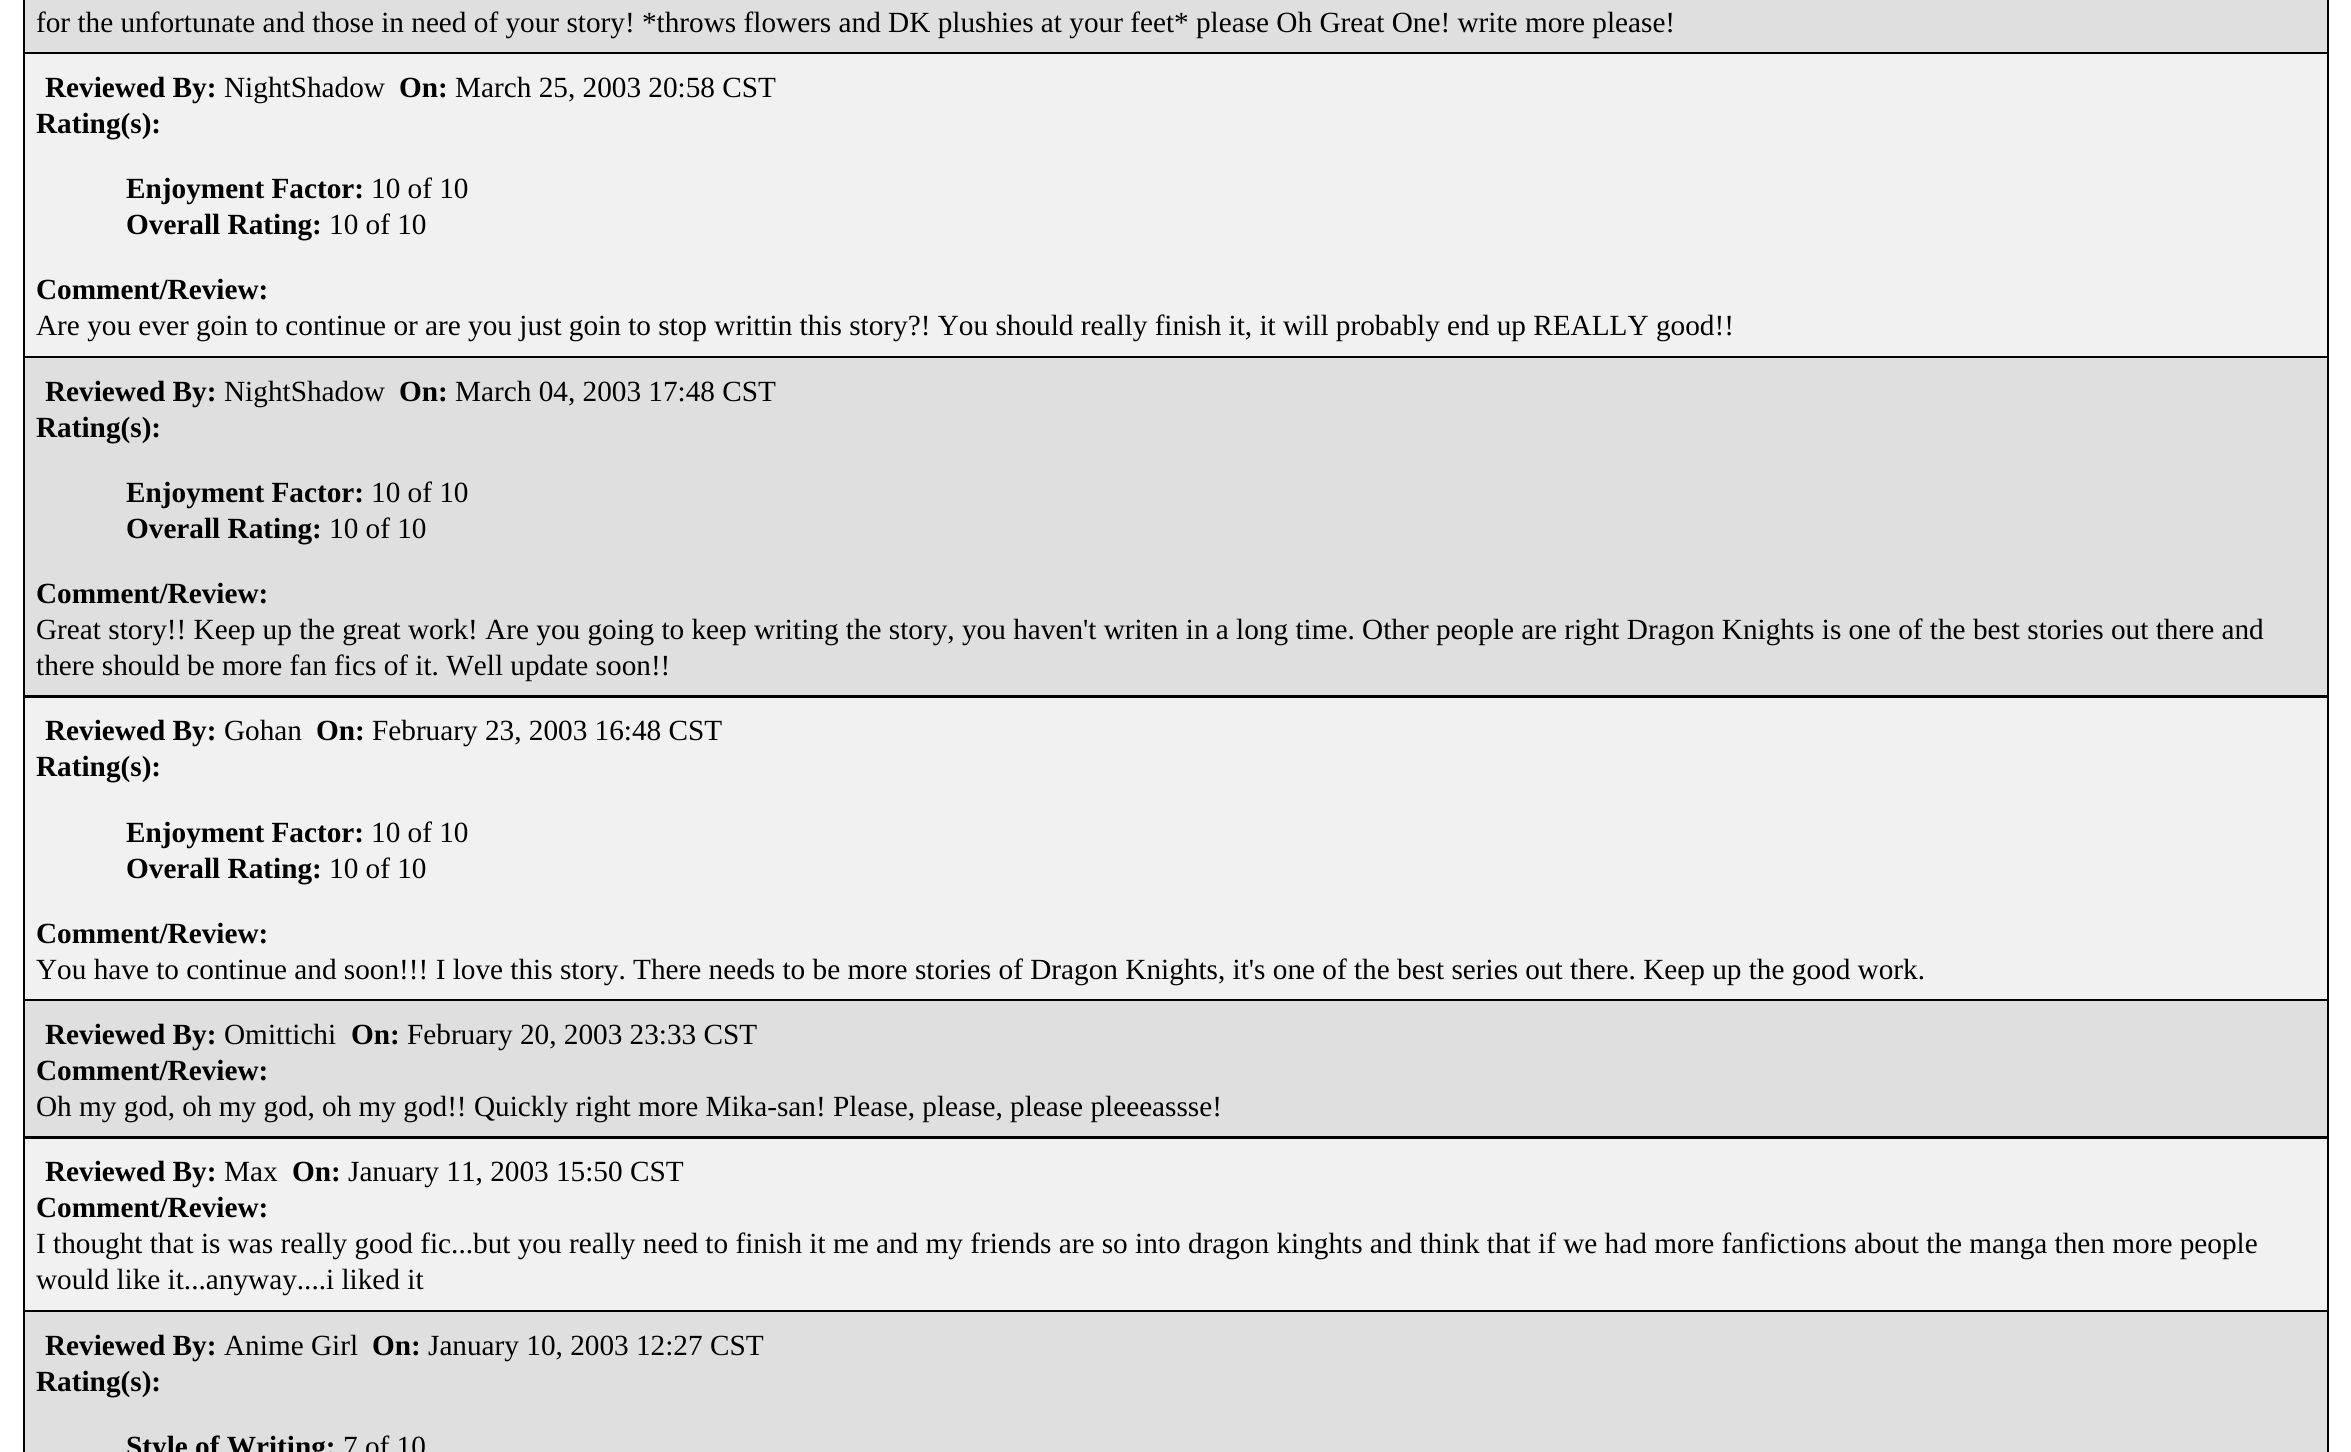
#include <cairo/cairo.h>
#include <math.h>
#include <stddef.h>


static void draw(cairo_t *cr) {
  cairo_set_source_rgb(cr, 1, 1, 1);
  cairo_paint(cr);
  cairo_set_source_rgb(cr, 0, 0, 0);
  cairo_rectangle(cr, 23, 0, 2306, 1452);
  cairo_fill(cr);
  cairo_set_source_rgb(cr, 223 / 255.0, 223 / 255.0, 223 / 255.0);
  cairo_rectangle(cr, 25, 0, 2302, 52);
  cairo_fill(cr);
  cairo_set_source_rgb(cr, 241 / 255.0, 241 / 255.0, 241 / 255.0);
  cairo_rectangle(cr, 25, 54, 2302, 302);
  cairo_fill(cr);
  cairo_set_source_rgb(cr, 223 / 255.0, 223 / 255.0, 223 / 255.0);
  cairo_rectangle(cr, 25, 358, 2302, 337);
  cairo_fill(cr);
  cairo_set_source_rgb(cr, 241 / 255.0, 241 / 255.0, 241 / 255.0);
  cairo_rectangle(cr, 25, 698, 2302, 301);
  cairo_fill(cr);
  cairo_set_source_rgb(cr, 223 / 255.0, 223 / 255.0, 223 / 255.0);
  cairo_rectangle(cr, 25, 1001, 2302, 135);
  cairo_fill(cr);
  cairo_set_source_rgb(cr, 241 / 255.0, 241 / 255.0, 241 / 255.0);
  cairo_rectangle(cr, 25, 1139, 2302, 171);
  cairo_fill(cr);
  cairo_set_source_rgb(cr, 223 / 255.0, 223 / 255.0, 223 / 255.0);
  cairo_rectangle(cr, 25, 1312, 2302, 140);
  cairo_fill(cr);
  cairo_select_font_face(cr, "Liberation Serif", CAIRO_FONT_SLANT_NORMAL, CAIRO_FONT_WEIGHT_NORMAL);
  cairo_set_font_size(cr, 29.25);
  cairo_set_source_rgb(cr, 0, 0, 0);
  cairo_move_to(cr, 36, 32);
  cairo_show_text(cr, "for the unfortunate and those in need of your story! *throws flowers and DK plushies at your feet* please Oh Great One! write more please!");
  cairo_select_font_face(cr, "Liberation Serif", CAIRO_FONT_SLANT_NORMAL, CAIRO_FONT_WEIGHT_BOLD);
  cairo_move_to(cr, 45, 97);
  cairo_show_text(cr, "Reviewed By:");
  cairo_select_font_face(cr, "Liberation Serif", CAIRO_FONT_SLANT_NORMAL, CAIRO_FONT_WEIGHT_NORMAL);
  cairo_move_to(cr, 224, 97);
  cairo_show_text(cr, "NightShadow");
  cairo_select_font_face(cr, "Liberation Serif", CAIRO_FONT_SLANT_NORMAL, CAIRO_FONT_WEIGHT_BOLD);
  cairo_move_to(cr, 399, 97);
  cairo_show_text(cr, "On:");
  cairo_select_font_face(cr, "Liberation Serif", CAIRO_FONT_SLANT_NORMAL, CAIRO_FONT_WEIGHT_NORMAL);
  cairo_move_to(cr, 455, 97);
  cairo_show_text(cr, "March 25, 2003 20:58 CST");
  cairo_select_font_face(cr, "Liberation Serif", CAIRO_FONT_SLANT_NORMAL, CAIRO_FONT_WEIGHT_BOLD);
  cairo_move_to(cr, 36, 133);
  cairo_show_text(cr, "Rating(s):");
  cairo_move_to(cr, 126, 198);
  cairo_show_text(cr, "Enjoyment Factor:");
  cairo_select_font_face(cr, "Liberation Serif", CAIRO_FONT_SLANT_NORMAL, CAIRO_FONT_WEIGHT_NORMAL);
  cairo_move_to(cr, 371, 198);
  cairo_show_text(cr, "10 of 10");
  cairo_select_font_face(cr, "Liberation Serif", CAIRO_FONT_SLANT_NORMAL, CAIRO_FONT_WEIGHT_BOLD);
  cairo_move_to(cr, 126, 234);
  cairo_show_text(cr, "Overall Rating:");
  cairo_select_font_face(cr, "Liberation Serif", CAIRO_FONT_SLANT_NORMAL, CAIRO_FONT_WEIGHT_NORMAL);
  cairo_move_to(cr, 329, 234);
  cairo_show_text(cr, "10 of 10");
  cairo_select_font_face(cr, "Liberation Serif", CAIRO_FONT_SLANT_NORMAL, CAIRO_FONT_WEIGHT_BOLD);
  cairo_move_to(cr, 36, 299);
  cairo_show_text(cr, "Comment/Review:");
  cairo_select_font_face(cr, "Liberation Serif", CAIRO_FONT_SLANT_NORMAL, CAIRO_FONT_WEIGHT_NORMAL);
  cairo_move_to(cr, 36, 335);
  cairo_show_text(cr, "Are you ever goin to continue or are you just goin to stop writtin this story?! You should really finish it, it will probably end up REALLY good!!");
  cairo_select_font_face(cr, "Liberation Serif", CAIRO_FONT_SLANT_NORMAL, CAIRO_FONT_WEIGHT_BOLD);
  cairo_move_to(cr, 45, 401);
  cairo_show_text(cr, "Reviewed By:");
  cairo_select_font_face(cr, "Liberation Serif", CAIRO_FONT_SLANT_NORMAL, CAIRO_FONT_WEIGHT_NORMAL);
  cairo_move_to(cr, 224, 401);
  cairo_show_text(cr, "NightShadow");
  cairo_select_font_face(cr, "Liberation Serif", CAIRO_FONT_SLANT_NORMAL, CAIRO_FONT_WEIGHT_BOLD);
  cairo_move_to(cr, 399, 401);
  cairo_show_text(cr, "On:");
  cairo_select_font_face(cr, "Liberation Serif", CAIRO_FONT_SLANT_NORMAL, CAIRO_FONT_WEIGHT_NORMAL);
  cairo_move_to(cr, 455, 401);
  cairo_show_text(cr, "March 04, 2003 17:48 CST");
  cairo_select_font_face(cr, "Liberation Serif", CAIRO_FONT_SLANT_NORMAL, CAIRO_FONT_WEIGHT_BOLD);
  cairo_move_to(cr, 36, 437);
  cairo_show_text(cr, "Rating(s):");
  cairo_move_to(cr, 126, 502);
  cairo_show_text(cr, "Enjoyment Factor:");
  cairo_select_font_face(cr, "Liberation Serif", CAIRO_FONT_SLANT_NORMAL, CAIRO_FONT_WEIGHT_NORMAL);
  cairo_move_to(cr, 371, 502);
  cairo_show_text(cr, "10 of 10");
  cairo_select_font_face(cr, "Liberation Serif", CAIRO_FONT_SLANT_NORMAL, CAIRO_FONT_WEIGHT_BOLD);
  cairo_move_to(cr, 126, 538);
  cairo_show_text(cr, "Overall Rating:");
  cairo_select_font_face(cr, "Liberation Serif", CAIRO_FONT_SLANT_NORMAL, CAIRO_FONT_WEIGHT_NORMAL);
  cairo_move_to(cr, 329, 538);
  cairo_show_text(cr, "10 of 10");
  cairo_select_font_face(cr, "Liberation Serif", CAIRO_FONT_SLANT_NORMAL, CAIRO_FONT_WEIGHT_BOLD);
  cairo_move_to(cr, 36, 603);
  cairo_show_text(cr, "Comment/Review:");
  cairo_select_font_face(cr, "Liberation Serif", CAIRO_FONT_SLANT_NORMAL, CAIRO_FONT_WEIGHT_NORMAL);
  cairo_move_to(cr, 36, 639);
  cairo_show_text(cr, "Great story!! Keep up the great work! Are you going to keep writing the story, you haven't writen in a long time. Other people are right Dragon Knights is one of the best stories out there and");
  cairo_move_to(cr, 36, 675);
  cairo_show_text(cr, "there should be more fan fics of it. Well update soon!!");
  cairo_select_font_face(cr, "Liberation Serif", CAIRO_FONT_SLANT_NORMAL, CAIRO_FONT_WEIGHT_BOLD);
  cairo_move_to(cr, 45, 740);
  cairo_show_text(cr, "Reviewed By:");
  cairo_select_font_face(cr, "Liberation Serif", CAIRO_FONT_SLANT_NORMAL, CAIRO_FONT_WEIGHT_NORMAL);
  cairo_move_to(cr, 224, 740);
  cairo_show_text(cr, "Gohan");
  cairo_select_font_face(cr, "Liberation Serif", CAIRO_FONT_SLANT_NORMAL, CAIRO_FONT_WEIGHT_BOLD);
  cairo_move_to(cr, 316, 740);
  cairo_show_text(cr, "On:");
  cairo_select_font_face(cr, "Liberation Serif", CAIRO_FONT_SLANT_NORMAL, CAIRO_FONT_WEIGHT_NORMAL);
  cairo_move_to(cr, 372, 740);
  cairo_show_text(cr, "February 23, 2003 16:48 CST");
  cairo_select_font_face(cr, "Liberation Serif", CAIRO_FONT_SLANT_NORMAL, CAIRO_FONT_WEIGHT_BOLD);
  cairo_move_to(cr, 36, 776);
  cairo_show_text(cr, "Rating(s):");
  cairo_move_to(cr, 126, 842);
  cairo_show_text(cr, "Enjoyment Factor:");
  cairo_select_font_face(cr, "Liberation Serif", CAIRO_FONT_SLANT_NORMAL, CAIRO_FONT_WEIGHT_NORMAL);
  cairo_move_to(cr, 371, 842);
  cairo_show_text(cr, "10 of 10");
  cairo_select_font_face(cr, "Liberation Serif", CAIRO_FONT_SLANT_NORMAL, CAIRO_FONT_WEIGHT_BOLD);
  cairo_move_to(cr, 126, 878);
  cairo_show_text(cr, "Overall Rating:");
  cairo_select_font_face(cr, "Liberation Serif", CAIRO_FONT_SLANT_NORMAL, CAIRO_FONT_WEIGHT_NORMAL);
  cairo_move_to(cr, 329, 878);
  cairo_show_text(cr, "10 of 10");
  cairo_select_font_face(cr, "Liberation Serif", CAIRO_FONT_SLANT_NORMAL, CAIRO_FONT_WEIGHT_BOLD);
  cairo_move_to(cr, 36, 943);
  cairo_show_text(cr, "Comment/Review:");
  cairo_select_font_face(cr, "Liberation Serif", CAIRO_FONT_SLANT_NORMAL, CAIRO_FONT_WEIGHT_NORMAL);
  cairo_move_to(cr, 36, 979);
  cairo_show_text(cr, "You have to continue and soon!!! I love this story. There needs to be more stories of Dragon Knights, it's one of the best series out there. Keep up the good work.");
  cairo_select_font_face(cr, "Liberation Serif", CAIRO_FONT_SLANT_NORMAL, CAIRO_FONT_WEIGHT_BOLD);
  cairo_move_to(cr, 45, 1044);
  cairo_show_text(cr, "Reviewed By:");
  cairo_select_font_face(cr, "Liberation Serif", CAIRO_FONT_SLANT_NORMAL, CAIRO_FONT_WEIGHT_NORMAL);
  cairo_move_to(cr, 224, 1044);
  cairo_show_text(cr, "Omittichi");
  cairo_select_font_face(cr, "Liberation Serif", CAIRO_FONT_SLANT_NORMAL, CAIRO_FONT_WEIGHT_BOLD);
  cairo_move_to(cr, 351, 1044);
  cairo_show_text(cr, "On:");
  cairo_select_font_face(cr, "Liberation Serif", CAIRO_FONT_SLANT_NORMAL, CAIRO_FONT_WEIGHT_NORMAL);
  cairo_move_to(cr, 407, 1044);
  cairo_show_text(cr, "February 20, 2003 23:33 CST");
  cairo_select_font_face(cr, "Liberation Serif", CAIRO_FONT_SLANT_NORMAL, CAIRO_FONT_WEIGHT_BOLD);
  cairo_move_to(cr, 36, 1080);
  cairo_show_text(cr, "Comment/Review:");
  cairo_select_font_face(cr, "Liberation Serif", CAIRO_FONT_SLANT_NORMAL, CAIRO_FONT_WEIGHT_NORMAL);
  cairo_move_to(cr, 36, 1116);
  cairo_show_text(cr, "Oh my god, oh my god, oh my god!! Quickly right more Mika-san! Please, please, please pleeeassse!");
  cairo_select_font_face(cr, "Liberation Serif", CAIRO_FONT_SLANT_NORMAL, CAIRO_FONT_WEIGHT_BOLD);
  cairo_move_to(cr, 45, 1181);
  cairo_show_text(cr, "Reviewed By:");
  cairo_select_font_face(cr, "Liberation Serif", CAIRO_FONT_SLANT_NORMAL, CAIRO_FONT_WEIGHT_NORMAL);
  cairo_move_to(cr, 224, 1181);
  cairo_show_text(cr, "Max");
  cairo_select_font_face(cr, "Liberation Serif", CAIRO_FONT_SLANT_NORMAL, CAIRO_FONT_WEIGHT_BOLD);
  cairo_move_to(cr, 292, 1181);
  cairo_show_text(cr, "On:");
  cairo_select_font_face(cr, "Liberation Serif", CAIRO_FONT_SLANT_NORMAL, CAIRO_FONT_WEIGHT_NORMAL);
  cairo_move_to(cr, 348, 1181);
  cairo_show_text(cr, "January 11, 2003 15:50 CST");
  cairo_select_font_face(cr, "Liberation Serif", CAIRO_FONT_SLANT_NORMAL, CAIRO_FONT_WEIGHT_BOLD);
  cairo_move_to(cr, 36, 1217);
  cairo_show_text(cr, "Comment/Review:");
  cairo_select_font_face(cr, "Liberation Serif", CAIRO_FONT_SLANT_NORMAL, CAIRO_FONT_WEIGHT_NORMAL);
  cairo_move_to(cr, 36, 1253);
  cairo_show_text(cr, "I thought that is was really good fic...but you really need to finish it me and my friends are so into dragon kinghts and think that if we had more fanfictions about the manga then more people");
  cairo_move_to(cr, 36, 1289);
  cairo_show_text(cr, "would like it...anyway....i liked it");
  cairo_select_font_face(cr, "Liberation Serif", CAIRO_FONT_SLANT_NORMAL, CAIRO_FONT_WEIGHT_BOLD);
  cairo_move_to(cr, 45, 1355);
  cairo_show_text(cr, "Reviewed By:");
  cairo_select_font_face(cr, "Liberation Serif", CAIRO_FONT_SLANT_NORMAL, CAIRO_FONT_WEIGHT_NORMAL);
  cairo_move_to(cr, 224, 1355);
  cairo_show_text(cr, "Anime Girl");
  cairo_select_font_face(cr, "Liberation Serif", CAIRO_FONT_SLANT_NORMAL, CAIRO_FONT_WEIGHT_BOLD);
  cairo_move_to(cr, 372, 1355);
  cairo_show_text(cr, "On:");
  cairo_select_font_face(cr, "Liberation Serif", CAIRO_FONT_SLANT_NORMAL, CAIRO_FONT_WEIGHT_NORMAL);
  cairo_move_to(cr, 428, 1355);
  cairo_show_text(cr, "January 10, 2003 12:27 CST");
  cairo_select_font_face(cr, "Liberation Serif", CAIRO_FONT_SLANT_NORMAL, CAIRO_FONT_WEIGHT_BOLD);
  cairo_move_to(cr, 36, 1391);
  cairo_show_text(cr, "Rating(s):");
  cairo_move_to(cr, 126, 1456);
  cairo_show_text(cr, "Style of Writing:");
  cairo_select_font_face(cr, "Liberation Serif", CAIRO_FONT_SLANT_NORMAL, CAIRO_FONT_WEIGHT_NORMAL);
  cairo_move_to(cr, 343, 1456);
  cairo_show_text(cr, "7 of 10");
}

int main(void) {
  cairo_surface_t *surface = cairo_image_surface_create(CAIRO_FORMAT_RGB24, 2351, 1452);
  cairo_t *cr = cairo_create(surface);
  cairo_font_options_t *options = cairo_font_options_create();
  cairo_font_options_set_hint_metrics(options, CAIRO_HINT_METRICS_OFF);
  cairo_font_options_set_hint_style(options, CAIRO_HINT_STYLE_NONE);
  cairo_set_font_options(cr, options);
  cairo_set_miter_limit(cr, 4);
  draw(cr);
  cairo_surface_write_to_png(surface, "out.png");
  cairo_font_options_destroy(options);
  cairo_destroy(cr);
  cairo_surface_destroy(surface);
  return 0;
}
